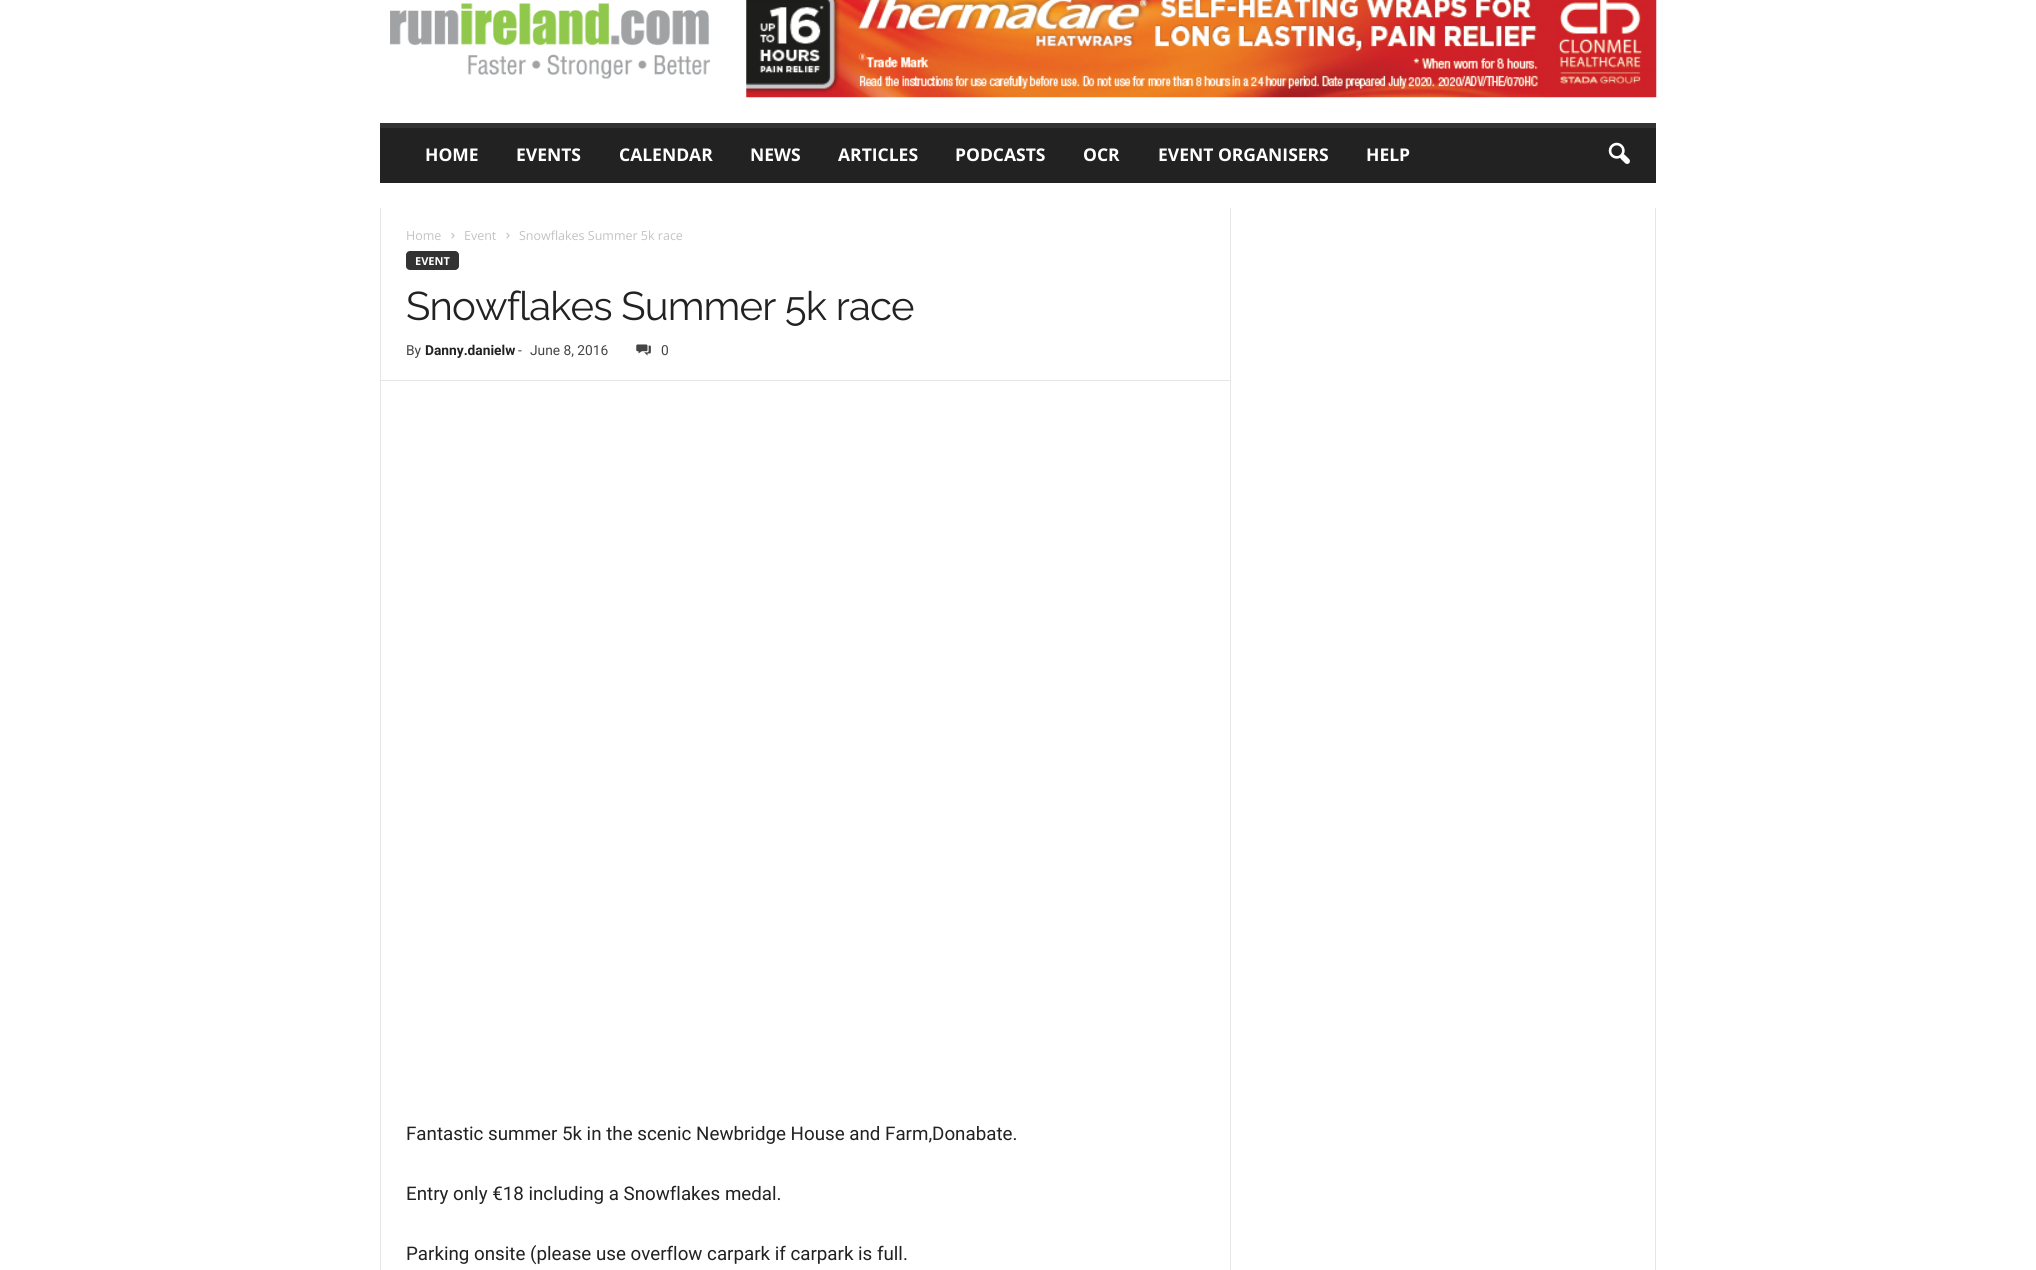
#include <cairo/cairo.h>
#include <math.h>
#include <stddef.h>


static void draw_spaced(cairo_t *cr, double x, double y, const char *s, double letter, double word) {
  cairo_move_to(cr, x, y);
  while (*s) {
    char ch[5] = {0};
    int n = 0;
    do ch[n++] = *s++; while ((*s & 0xC0) == 0x80);
    cairo_show_text(cr, ch);
    cairo_rel_move_to(cr, letter + word * (*ch == ' '), 0);
  }
}

static void rounded_rect(cairo_t *cr, double x, double y, double w, double h, double r) {
  cairo_new_sub_path(cr);
  cairo_arc(cr, x + w - r, y + h - r, r, 0, M_PI / 2);
  cairo_arc(cr, x + r, y + h - r, r, M_PI / 2, M_PI);
  cairo_arc(cr, x + r, y + r, r, M_PI, 1.5 * M_PI);
  cairo_arc(cr, x + w - r, y + r, r, 1.5 * M_PI, 2 * M_PI);
  cairo_close_path(cr);
}

static void draw_image(cairo_t *cr, const char *path, double x, double y, double w, double h) {
  cairo_surface_t *image = cairo_image_surface_create_from_png(path);
  cairo_save(cr);
  cairo_set_source_surface(cr, image, x, y);
  cairo_rectangle(cr, x, y, w, h);
  cairo_fill(cr);
  cairo_restore(cr);
  cairo_surface_destroy(image);
}

static void draw(cairo_t *cr) {
  cairo_set_source_rgb(cr, 1, 1, 1);
  cairo_paint(cr);
  draw_image(cr, "images/1.png", 390, 3, 320, 76);
  draw_image(cr, "images/2.png", 746, 0, 911, 98);
  cairo_set_source_rgb(cr, 34 / 255.0, 34 / 255.0, 34 / 255.0);
  cairo_rectangle(cr, 380, 128, 1276, 55);
  cairo_fill(cr);
  cairo_set_source_rgb(cr, 51 / 255.0, 51 / 255.0, 51 / 255.0);
  cairo_rectangle(cr, 380, 123, 1276, 5);
  cairo_fill(cr);
  draw_image(cr, "images/3.png", 1608, 142, 22, 22);
  cairo_set_source_rgb(cr, 230 / 255.0, 230 / 255.0, 230 / 255.0);
  cairo_rectangle(cr, 380, 208, 1, 1062);
  cairo_fill(cr);
  draw_image(cr, "images/4.png", 451, 232, 4, 7);
  draw_image(cr, "images/4.png", 506, 232, 4, 7);
  cairo_set_source_rgb(cr, 51 / 255.0, 51 / 255.0, 51 / 255.0);
  rounded_rect(cr, 406, 251, 53, 19, 4);
  cairo_fill(cr);
  draw_image(cr, "images/5.png", 636, 344, 15, 12);
  cairo_set_source_rgb(cr, 230 / 255.0, 230 / 255.0, 230 / 255.0);
  cairo_rectangle(cr, 381, 380, 849, 1);
  cairo_fill(cr);
  cairo_rectangle(cr, 1230, 208, 1, 1062);
  cairo_fill(cr);
  cairo_rectangle(cr, 1655, 208, 1, 1062);
  cairo_fill(cr);
  cairo_select_font_face(cr, "Open Sans", CAIRO_FONT_SLANT_NORMAL, CAIRO_FONT_WEIGHT_BOLD);
  cairo_set_font_size(cr, 17.5);
  cairo_set_source_rgb(cr, 1, 1, 1);
  cairo_move_to(cr, 425, 161);
  cairo_show_text(cr, "HOME");
  cairo_move_to(cr, 516, 161);
  cairo_show_text(cr, "EVENTS");
  cairo_move_to(cr, 619, 161);
  cairo_show_text(cr, "CALENDAR");
  cairo_move_to(cr, 750, 161);
  cairo_show_text(cr, "NEWS");
  cairo_move_to(cr, 838, 161);
  cairo_show_text(cr, "ARTICLES");
  cairo_move_to(cr, 955, 161);
  cairo_show_text(cr, "PODCASTS");
  cairo_move_to(cr, 1083, 161);
  cairo_show_text(cr, "OCR");
  cairo_move_to(cr, 1158, 161);
  cairo_show_text(cr, "EVENT ORGANISERS");
  cairo_move_to(cr, 1366, 161);
  cairo_show_text(cr, "HELP");
  cairo_select_font_face(cr, "Open Sans", CAIRO_FONT_SLANT_NORMAL, CAIRO_FONT_WEIGHT_NORMAL);
  cairo_set_font_size(cr, 12.5);
  cairo_set_source_rgb(cr, 195 / 255.0, 195 / 255.0, 195 / 255.0);
  cairo_move_to(cr, 406, 240);
  cairo_show_text(cr, "Home");
  cairo_move_to(cr, 464, 240);
  cairo_show_text(cr, "Event");
  cairo_move_to(cr, 519, 240);
  cairo_show_text(cr, "Snowflakes Summer 5k race");
  cairo_select_font_face(cr, "Open Sans", CAIRO_FONT_SLANT_NORMAL, CAIRO_FONT_WEIGHT_BOLD);
  cairo_set_font_size(cr, 11);
  cairo_set_source_rgb(cr, 1, 1, 1);
  cairo_move_to(cr, 415, 265);
  cairo_show_text(cr, "EVENT");
  cairo_select_font_face(cr, "Raleway", CAIRO_FONT_SLANT_NORMAL, CAIRO_FONT_WEIGHT_NORMAL);
  cairo_set_font_size(cr, 40);
  cairo_set_source_rgb(cr, 34 / 255.0, 34 / 255.0, 34 / 255.0);
  draw_spaced(cr, 406, 320, "Snowflakes Summer 5k race", -0.8, 0);
  cairo_select_font_face(cr, "Roboto", CAIRO_FONT_SLANT_NORMAL, CAIRO_FONT_WEIGHT_NORMAL);
  cairo_set_font_size(cr, 13.75);
  cairo_set_source_rgb(cr, 68 / 255.0, 68 / 255.0, 68 / 255.0);
  cairo_move_to(cr, 406, 355);
  cairo_show_text(cr, "By");
  cairo_select_font_face(cr, "Roboto", CAIRO_FONT_SLANT_NORMAL, CAIRO_FONT_WEIGHT_BOLD);
  cairo_set_source_rgb(cr, 34 / 255.0, 34 / 255.0, 34 / 255.0);
  cairo_move_to(cr, 425, 355);
  cairo_show_text(cr, "Danny.danielw");
  cairo_select_font_face(cr, "Roboto", CAIRO_FONT_SLANT_NORMAL, CAIRO_FONT_WEIGHT_NORMAL);
  cairo_set_source_rgb(cr, 68 / 255.0, 68 / 255.0, 68 / 255.0);
  cairo_move_to(cr, 518, 355);
  cairo_show_text(cr, "-");
  cairo_move_to(cr, 530, 355);
  cairo_show_text(cr, "June 8, 2016");
  cairo_move_to(cr, 661, 355);
  cairo_show_text(cr, "0");
  cairo_set_font_size(cr, 18.75);
  cairo_set_source_rgb(cr, 34 / 255.0, 34 / 255.0, 34 / 255.0);
  cairo_move_to(cr, 406, 1140);
  cairo_show_text(cr, "Fantastic summer 5k in the scenic Newbridge House and Farm,Donabate.");
  cairo_move_to(cr, 406, 1200);
  cairo_show_text(cr, "Entry only €18 including a Snowflakes medal.");
  cairo_move_to(cr, 406, 1260);
  cairo_show_text(cr, "Parking onsite (please use overflow carpark if carpark is full.");
}

int main(void) {
  cairo_surface_t *surface = cairo_image_surface_create(CAIRO_FORMAT_RGB24, 2036, 1270);
  cairo_t *cr = cairo_create(surface);
  cairo_font_options_t *options = cairo_font_options_create();
  cairo_font_options_set_hint_metrics(options, CAIRO_HINT_METRICS_OFF);
  cairo_font_options_set_hint_style(options, CAIRO_HINT_STYLE_NONE);
  cairo_set_font_options(cr, options);
  cairo_set_miter_limit(cr, 4);
  draw(cr);
  cairo_surface_write_to_png(surface, "out.png");
  cairo_font_options_destroy(options);
  cairo_destroy(cr);
  cairo_surface_destroy(surface);
  return 0;
}
